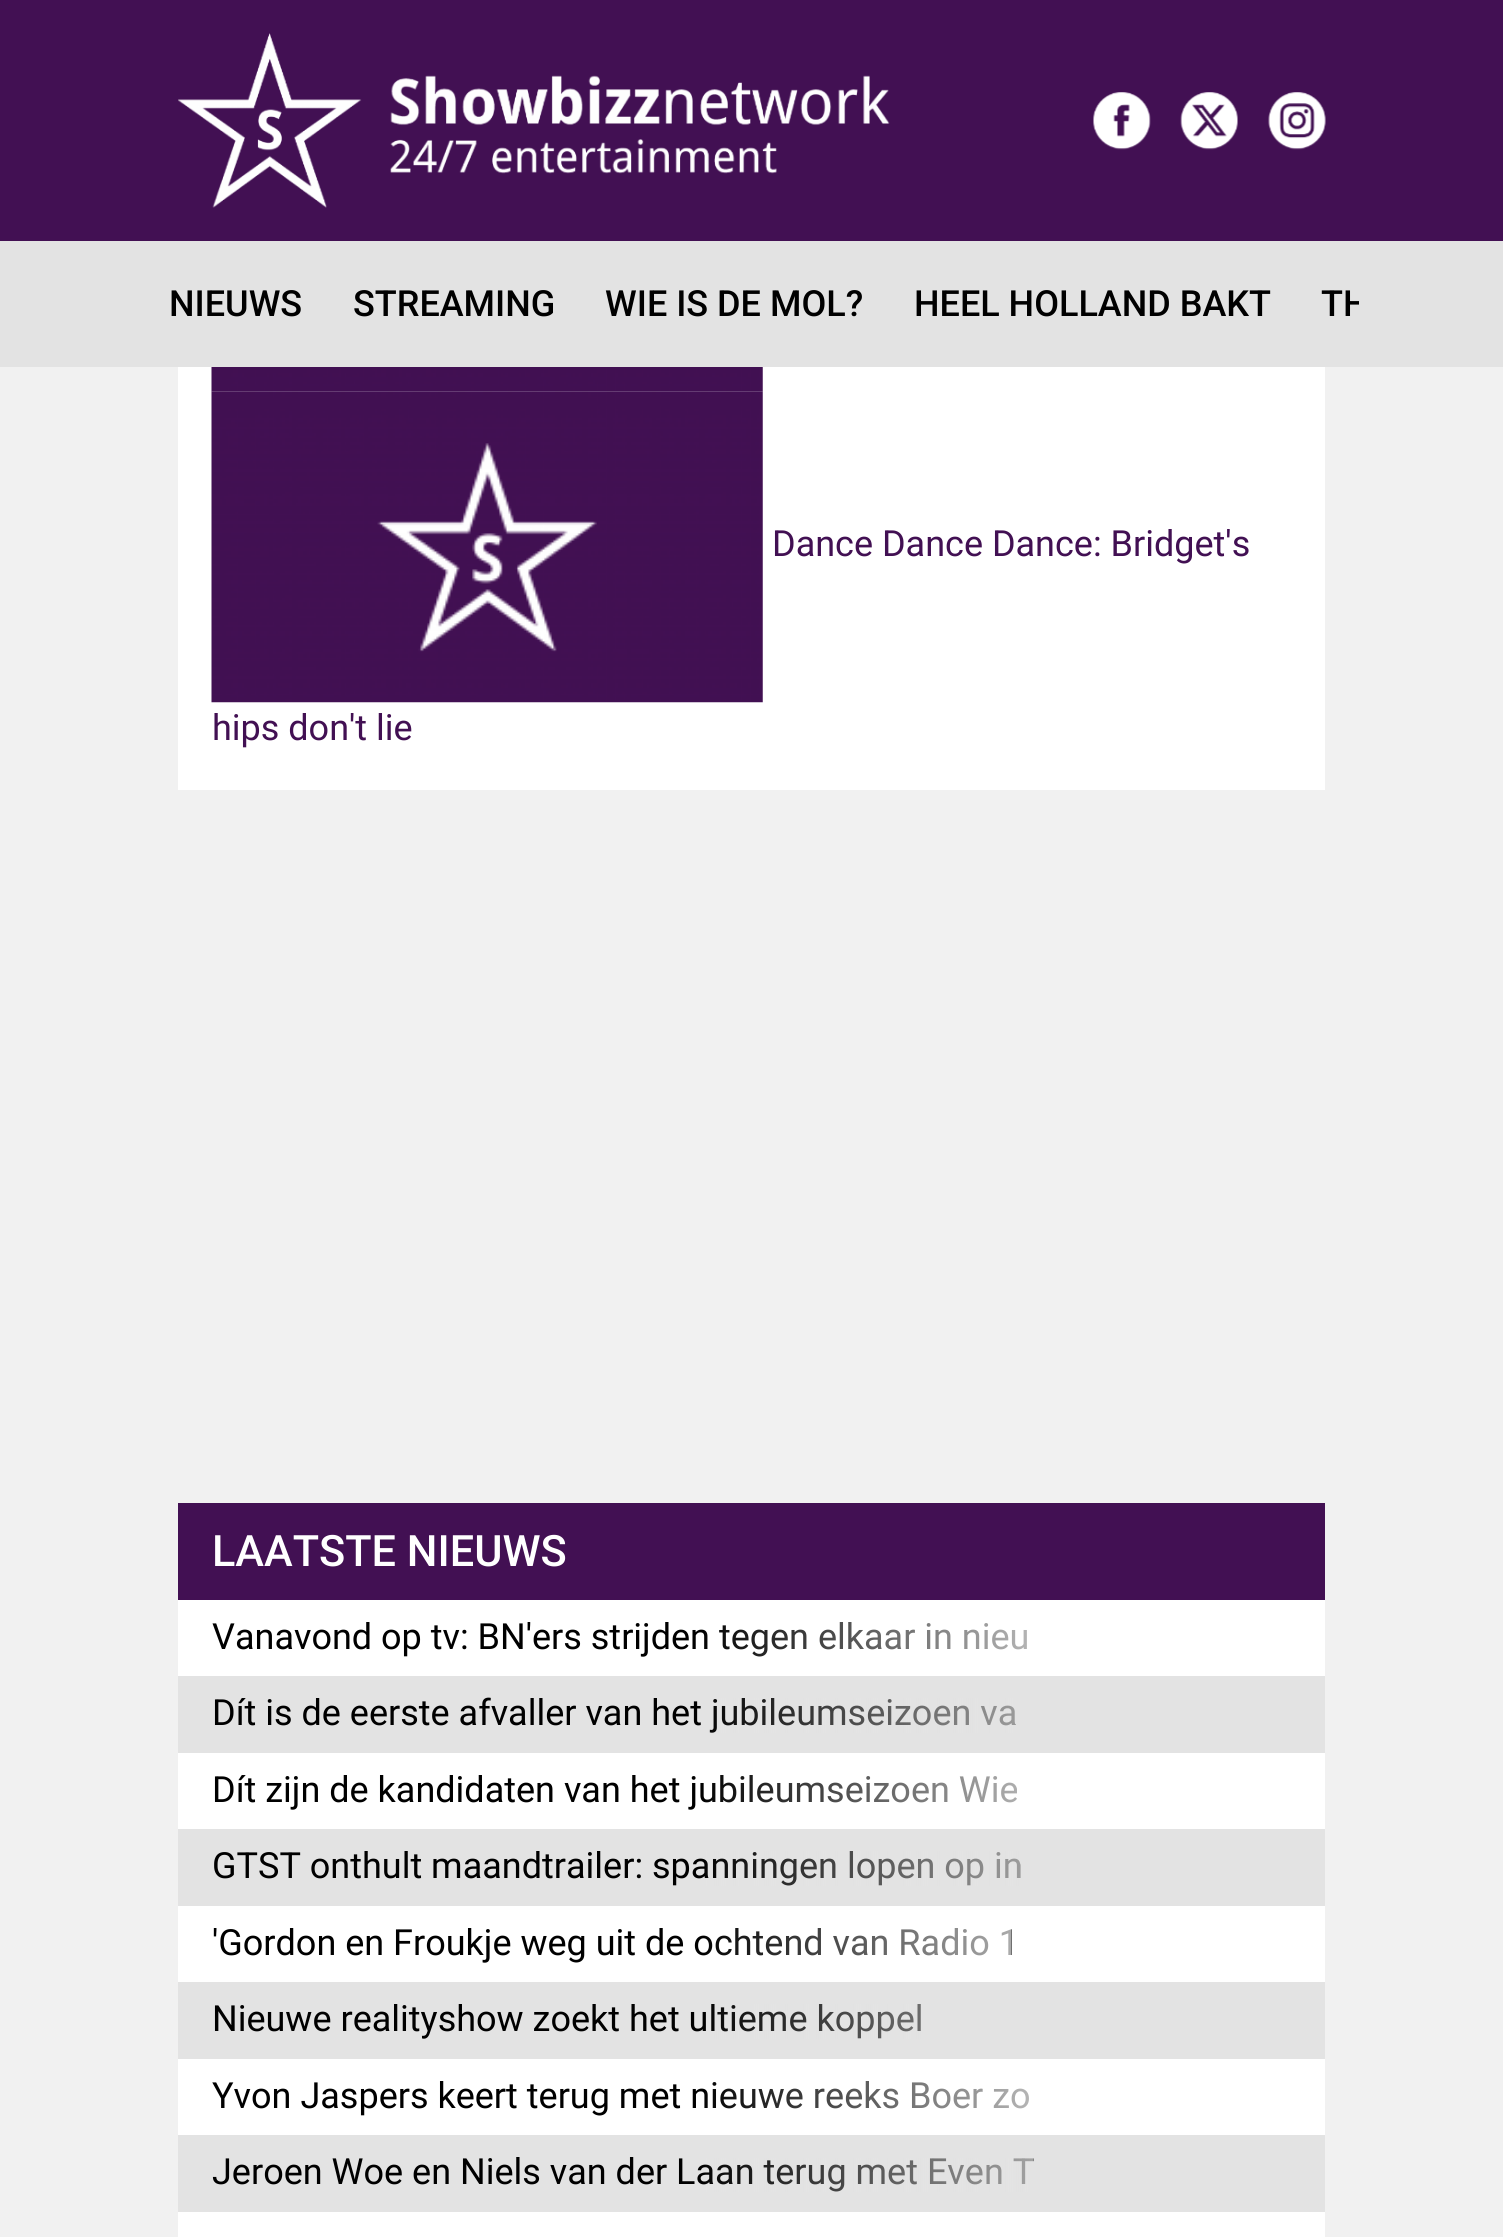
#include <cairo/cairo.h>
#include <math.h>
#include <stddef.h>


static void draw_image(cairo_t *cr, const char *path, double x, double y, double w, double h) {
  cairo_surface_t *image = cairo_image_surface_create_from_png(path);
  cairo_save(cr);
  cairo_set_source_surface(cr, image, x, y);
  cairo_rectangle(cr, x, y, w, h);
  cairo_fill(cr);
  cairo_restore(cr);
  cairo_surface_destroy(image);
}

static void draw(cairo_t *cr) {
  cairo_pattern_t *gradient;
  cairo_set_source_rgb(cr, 241 / 255.0, 241 / 255.0, 241 / 255.0);
  cairo_paint(cr);
  cairo_set_source_rgb(cr, 66 / 255.0, 16 / 255.0, 83 / 255.0);
  cairo_rectangle(cr, 0, 0, 1503, 241);
  cairo_fill(cr);
  draw_image(cr, "images/1.png", 178, 33, 712, 175);
  draw_image(cr, "images/2.png", 1093, 92, 58, 58);
  draw_image(cr, "images/3.png", 1180, 92, 58, 58);
  draw_image(cr, "images/4.png", 1268, 92, 58, 58);
  cairo_set_source_rgb(cr, 227 / 255.0, 227 / 255.0, 227 / 255.0);
  cairo_rectangle(cr, 0, 241, 1503, 126);
  cairo_fill(cr);
  cairo_set_source_rgb(cr, 1, 1, 1);
  cairo_rectangle(cr, 178, 367, 1147, 423);
  cairo_fill(cr);
  draw_image(cr, "images/5.png", 211, 367, 552, 25);
  draw_image(cr, "images/6.png", 211, 391, 552, 312);
  cairo_rectangle(cr, 178, 1600, 1147, 637);
  cairo_fill(cr);
  cairo_set_source_rgb(cr, 66 / 255.0, 16 / 255.0, 83 / 255.0);
  cairo_rectangle(cr, 178, 1503, 1147, 97);
  cairo_fill(cr);
  cairo_set_source_rgb(cr, 227 / 255.0, 227 / 255.0, 227 / 255.0);
  cairo_rectangle(cr, 178, 1676, 1147, 77);
  cairo_fill(cr);
  cairo_rectangle(cr, 178, 1829, 1147, 77);
  cairo_fill(cr);
  cairo_rectangle(cr, 178, 1982, 1147, 77);
  cairo_fill(cr);
  cairo_rectangle(cr, 178, 2135, 1147, 77);
  cairo_fill(cr);
  cairo_select_font_face(cr, "Roboto Medium", CAIRO_FONT_SLANT_NORMAL, CAIRO_FONT_WEIGHT_NORMAL);
  cairo_set_font_size(cr, 36);
  cairo_set_source_rgb(cr, 0, 0, 0);
  cairo_move_to(cr, 169, 316);
  cairo_show_text(cr, "NIEUWS");
  cairo_move_to(cr, 353, 316);
  cairo_show_text(cr, "STREAMING");
  cairo_move_to(cr, 605, 316);
  cairo_show_text(cr, "WIE IS DE MOL?");
  cairo_move_to(cr, 914, 316);
  cairo_show_text(cr, "HEEL HOLLAND BAKT");
  cairo_save(cr);
  cairo_rectangle(cr, 144, 241, 1215, 126);
  cairo_clip(cr);
  cairo_move_to(cr, 1321, 316);
  cairo_show_text(cr, "TH");
  cairo_restore(cr);
  cairo_select_font_face(cr, "Roboto", CAIRO_FONT_SLANT_NORMAL, CAIRO_FONT_WEIGHT_NORMAL);
  cairo_set_source_rgb(cr, 66 / 255.0, 16 / 255.0, 83 / 255.0);
  cairo_move_to(cr, 772, 556);
  cairo_show_text(cr, "Dance Dance Dance: Bridget's");
  cairo_move_to(cr, 212, 740);
  cairo_show_text(cr, "hips don't lie");
  cairo_select_font_face(cr, "Roboto Medium", CAIRO_FONT_SLANT_NORMAL, CAIRO_FONT_WEIGHT_NORMAL);
  cairo_set_font_size(cr, 43.25);
  cairo_set_source_rgb(cr, 1, 1, 1);
  cairo_move_to(cr, 212, 1566);
  cairo_show_text(cr, "LAATSTE NIEUWS");
  cairo_select_font_face(cr, "Roboto", CAIRO_FONT_SLANT_NORMAL, CAIRO_FONT_WEIGHT_NORMAL);
  cairo_set_font_size(cr, 36);
  cairo_set_source_rgb(cr, 0, 0, 0);
  cairo_move_to(cr, 212, 1649);
  cairo_show_text(cr, "Vanavond op tv: BN'ers strijden tegen elkaar in nieu");
  gradient = cairo_pattern_create_linear(695, 1640, 1325, 1640);
  cairo_pattern_add_color_stop_rgba(gradient, 0, 1, 1, 1, 0);
  cairo_pattern_add_color_stop_rgba(gradient, 0.75, 1, 1, 1, 1);
  cairo_set_source(cr, gradient);
  cairo_pattern_destroy(gradient);
  cairo_rectangle(cr, 705, 1622, 322, 35);
  cairo_fill(cr);
  cairo_set_source_rgb(cr, 0, 0, 0);
  cairo_move_to(cr, 212, 1725);
  cairo_show_text(cr, "Dít is de eerste afvaller van het jubileumseizoen va");
  gradient = cairo_pattern_create_linear(695, 1717, 1325, 1717);
  cairo_pattern_add_color_stop_rgba(gradient, 0, 227 / 255.0, 227 / 255.0, 227 / 255.0, 0);
  cairo_pattern_add_color_stop_rgba(gradient, 0.75, 227 / 255.0, 227 / 255.0, 227 / 255.0, 1);
  cairo_set_source(cr, gradient);
  cairo_pattern_destroy(gradient);
  cairo_rectangle(cr, 709, 1698, 306, 35);
  cairo_fill(cr);
  cairo_set_source_rgb(cr, 0, 0, 0);
  cairo_move_to(cr, 212, 1802);
  cairo_show_text(cr, "Dít zijn de kandidaten van het jubileumseizoen Wie");
  gradient = cairo_pattern_create_linear(695, 1793, 1325, 1793);
  cairo_pattern_add_color_stop_rgba(gradient, 0, 1, 1, 1, 0);
  cairo_pattern_add_color_stop_rgba(gradient, 0.75, 1, 1, 1, 1);
  cairo_set_source(cr, gradient);
  cairo_pattern_destroy(gradient);
  cairo_rectangle(cr, 705, 1775, 312, 28);
  cairo_fill(cr);
  cairo_set_source_rgb(cr, 0, 0, 0);
  cairo_move_to(cr, 212, 1878);
  cairo_show_text(cr, "GTST onthult maandtrailer: spanningen lopen op in");
  gradient = cairo_pattern_create_linear(695, 1870, 1325, 1870);
  cairo_pattern_add_color_stop_rgba(gradient, 0, 227 / 255.0, 227 / 255.0, 227 / 255.0, 0);
  cairo_pattern_add_color_stop_rgba(gradient, 0.75, 227 / 255.0, 227 / 255.0, 227 / 255.0, 1);
  cairo_set_source(cr, gradient);
  cairo_pattern_destroy(gradient);
  cairo_rectangle(cr, 705, 1851, 315, 35);
  cairo_fill(cr);
  cairo_set_source_rgb(cr, 0, 0, 0);
  cairo_move_to(cr, 212, 1955);
  cairo_show_text(cr, "'Gordon en Froukje weg uit de ochtend van Radio 1");
  gradient = cairo_pattern_create_linear(695, 1946, 1325, 1946);
  cairo_pattern_add_color_stop_rgba(gradient, 0, 1, 1, 1, 0);
  cairo_pattern_add_color_stop_rgba(gradient, 0.75, 1, 1, 1, 1);
  cairo_set_source(cr, gradient);
  cairo_pattern_destroy(gradient);
  cairo_rectangle(cr, 705, 1928, 306, 28);
  cairo_fill(cr);
  cairo_set_source_rgb(cr, 0, 0, 0);
  cairo_move_to(cr, 212, 2031);
  cairo_show_text(cr, "Nieuwe realityshow zoekt het ultieme koppel");
  gradient = cairo_pattern_create_linear(695, 2023, 1325, 2023);
  cairo_pattern_add_color_stop_rgba(gradient, 0, 227 / 255.0, 227 / 255.0, 227 / 255.0, 0);
  cairo_pattern_add_color_stop_rgba(gradient, 0.75, 227 / 255.0, 227 / 255.0, 227 / 255.0, 1);
  cairo_set_source(cr, gradient);
  cairo_pattern_destroy(gradient);
  cairo_rectangle(cr, 711, 2004, 210, 35);
  cairo_fill(cr);
  cairo_set_source_rgb(cr, 0, 0, 0);
  cairo_move_to(cr, 212, 2108);
  cairo_show_text(cr, "Yvon Jaspers keert terug met nieuwe reeks Boer zo");
  gradient = cairo_pattern_create_linear(695, 2099, 1325, 2099);
  cairo_pattern_add_color_stop_rgba(gradient, 0, 1, 1, 1, 0);
  cairo_pattern_add_color_stop_rgba(gradient, 0.75, 1, 1, 1, 1);
  cairo_set_source(cr, gradient);
  cairo_pattern_destroy(gradient);
  cairo_rectangle(cr, 705, 2081, 324, 28);
  cairo_fill(cr);
  cairo_set_source_rgb(cr, 0, 0, 0);
  cairo_move_to(cr, 212, 2184);
  cairo_show_text(cr, "Jeroen Woe en Niels van der Laan terug met Even T");
  gradient = cairo_pattern_create_linear(695, 2176, 1325, 2176);
  cairo_pattern_add_color_stop_rgba(gradient, 0, 227 / 255.0, 227 / 255.0, 227 / 255.0, 0);
  cairo_pattern_add_color_stop_rgba(gradient, 0.75, 227 / 255.0, 227 / 255.0, 227 / 255.0, 1);
  cairo_set_source(cr, gradient);
  cairo_pattern_destroy(gradient);
  cairo_rectangle(cr, 705, 2158, 328, 34);
  cairo_fill(cr);
}

int main(void) {
  cairo_surface_t *surface = cairo_image_surface_create(CAIRO_FORMAT_RGB24, 1503, 2237);
  cairo_t *cr = cairo_create(surface);
  cairo_font_options_t *options = cairo_font_options_create();
  cairo_font_options_set_hint_metrics(options, CAIRO_HINT_METRICS_OFF);
  cairo_font_options_set_hint_style(options, CAIRO_HINT_STYLE_NONE);
  cairo_set_font_options(cr, options);
  cairo_set_miter_limit(cr, 4);
  draw(cr);
  cairo_surface_write_to_png(surface, "out.png");
  cairo_font_options_destroy(options);
  cairo_destroy(cr);
  cairo_surface_destroy(surface);
  return 0;
}
